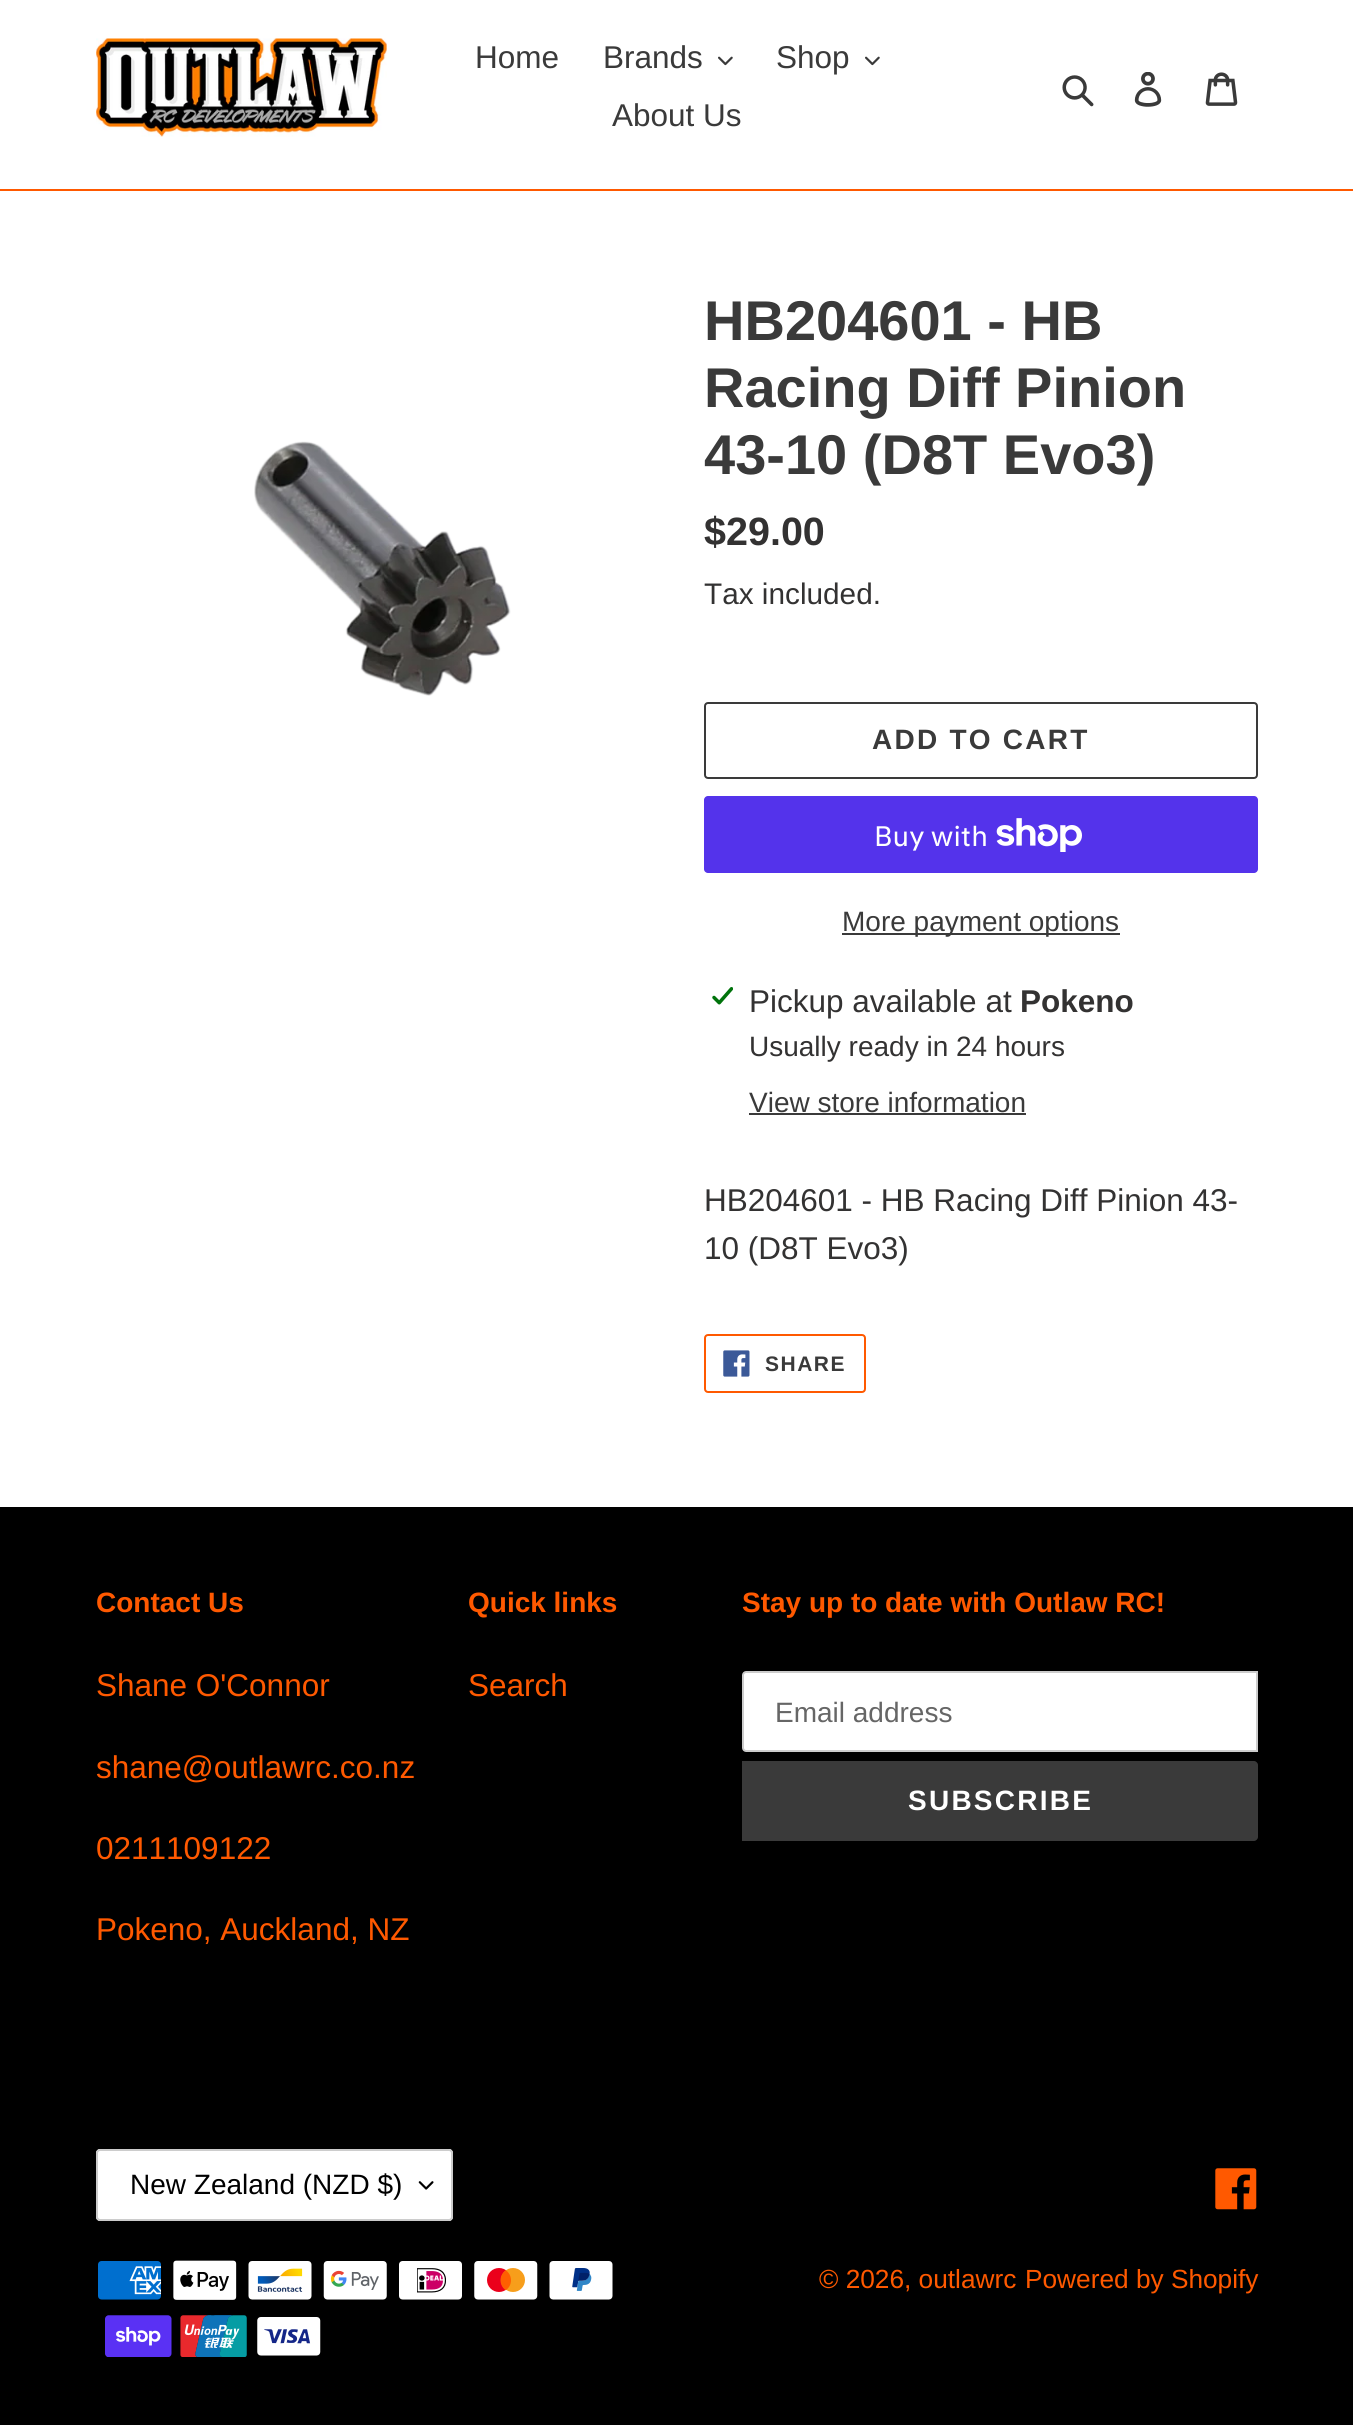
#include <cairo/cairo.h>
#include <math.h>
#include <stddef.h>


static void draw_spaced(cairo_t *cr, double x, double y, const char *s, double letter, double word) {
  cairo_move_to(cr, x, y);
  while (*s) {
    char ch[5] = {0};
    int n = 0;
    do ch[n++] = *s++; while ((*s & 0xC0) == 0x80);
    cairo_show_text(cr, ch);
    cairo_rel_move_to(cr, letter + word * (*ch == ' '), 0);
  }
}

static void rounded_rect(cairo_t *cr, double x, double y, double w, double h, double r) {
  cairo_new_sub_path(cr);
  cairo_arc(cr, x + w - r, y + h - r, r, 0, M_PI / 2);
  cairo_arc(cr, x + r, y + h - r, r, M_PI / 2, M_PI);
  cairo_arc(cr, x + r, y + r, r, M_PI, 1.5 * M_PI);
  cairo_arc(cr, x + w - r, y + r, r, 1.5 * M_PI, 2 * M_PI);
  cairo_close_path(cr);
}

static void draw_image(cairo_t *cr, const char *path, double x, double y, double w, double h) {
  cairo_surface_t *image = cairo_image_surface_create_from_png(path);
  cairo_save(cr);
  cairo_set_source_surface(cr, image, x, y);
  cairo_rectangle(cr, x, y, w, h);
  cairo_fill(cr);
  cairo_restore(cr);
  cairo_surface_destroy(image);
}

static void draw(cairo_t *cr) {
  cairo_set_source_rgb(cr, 1, 1, 1);
  cairo_paint(cr);
  cairo_set_source_rgb(cr, 1, 89 / 255.0, 0);
  cairo_rectangle(cr, 0, 189, 1353, 2);
  cairo_fill(cr);
  draw_image(cr, "images/1.png", 96, 38, 291, 99);
  draw_image(cr, "images/2.png", 718, 56, 15, 10);
  draw_image(cr, "images/2.png", 865, 56, 15, 10);
  draw_image(cr, "images/3.png", 1062, 75, 32, 32);
  draw_image(cr, "images/4.png", 1134, 72, 28, 35);
  draw_image(cr, "images/5.png", 1205, 72, 33, 34);
  draw_image(cr, "images/6.png", 254, 441, 257, 255);
  rounded_rect(cr, 705, 703, 552, 75, 3);
  cairo_set_source_rgb(cr, 58 / 255.0, 58 / 255.0, 58 / 255.0);
  cairo_stroke(cr);
  cairo_set_source_rgb(cr, 84 / 255.0, 51 / 255.0, 235 / 255.0);
  rounded_rect(cr, 704, 796, 554, 77, 4);
  cairo_fill(cr);
  draw_image(cr, "images/7.png", 996, 818, 86, 34);
  cairo_set_source_rgb(cr, 58 / 255.0, 58 / 255.0, 58 / 255.0);
  cairo_rectangle(cr, 842, 933, 278, 2);
  cairo_fill(cr);
  draw_image(cr, "images/8.png", 712, 987, 21, 18);
  cairo_rectangle(cr, 749, 1113, 277, 2);
  cairo_fill(cr);
  rounded_rect(cr, 705, 1335, 160, 57, 3);
  cairo_set_source_rgb(cr, 1, 89 / 255.0, 0);
  cairo_stroke(cr);
  draw_image(cr, "images/9.png", 723, 1350, 27, 27);
  cairo_set_source_rgb(cr, 0, 0, 0);
  cairo_rectangle(cr, 0, 1507, 1353, 918);
  cairo_fill(cr);
  cairo_set_source_rgb(cr, 1, 1, 1);
  cairo_new_path(cr);
  cairo_move_to(cr, 746, 1672);
  cairo_line_to(cr, 1257, 1672);
  cairo_line_to(cr, 1257, 1751);
  cairo_line_to(cr, 746, 1751);
  cairo_curve_to(cr, 744.5, 1751, 743, 1749.5, 743, 1748);
  cairo_line_to(cr, 743, 1675);
  cairo_curve_to(cr, 743, 1673.5, 744.5, 1672, 746, 1672);
  cairo_close_path(cr);
  cairo_fill_preserve(cr);
  cairo_set_source_rgb(cr, 204 / 255.0, 204 / 255.0, 204 / 255.0);
  cairo_stroke(cr);
  cairo_set_source_rgb(cr, 58 / 255.0, 58 / 255.0, 58 / 255.0);
  cairo_new_path(cr);
  cairo_move_to(cr, 742, 1761);
  cairo_line_to(cr, 1254, 1761);
  cairo_curve_to(cr, 1256, 1761, 1258, 1763, 1258, 1765);
  cairo_line_to(cr, 1258, 1837);
  cairo_curve_to(cr, 1258, 1839, 1256, 1841, 1254, 1841);
  cairo_line_to(cr, 742, 1841);
  cairo_close_path(cr);
  cairo_fill(cr);
  cairo_set_source_rgb(cr, 1, 1, 1);
  rounded_rect(cr, 96, 2149, 357, 72, 4);
  cairo_fill(cr);
  draw_image(cr, "images/10.png", 418, 2181, 16, 9);
  rounded_rect(cr, 97, 2150, 355, 70, 3);
  cairo_set_source_rgb(cr, 204 / 255.0, 204 / 255.0, 204 / 255.0);
  cairo_stroke(cr);
  draw_image(cr, "images/11.png", 1215, 2168, 42, 42);
  draw_image(cr, "images/12.png", 98, 2261, 63, 39);
  draw_image(cr, "images/13.png", 173, 2260, 64, 40);
  draw_image(cr, "images/14.png", 248, 2261, 64, 39);
  draw_image(cr, "images/15.png", 323, 2261, 64, 39);
  draw_image(cr, "images/16.png", 399, 2261, 63, 39);
  draw_image(cr, "images/17.png", 474, 2261, 64, 39);
  draw_image(cr, "images/18.png", 549, 2261, 64, 39);
  draw_image(cr, "images/19.png", 105, 2315, 67, 42);
  draw_image(cr, "images/20.png", 180, 2315, 67, 42);
  draw_image(cr, "images/21.png", 257, 2317, 64, 39);
  cairo_select_font_face(cr, "Liberation Sans", CAIRO_FONT_SLANT_NORMAL, CAIRO_FONT_WEIGHT_NORMAL);
  cairo_set_font_size(cr, 31.5);
  cairo_set_source_rgb(cr, 58 / 255.0, 58 / 255.0, 58 / 255.0);
  cairo_move_to(cr, 475, 68);
  cairo_show_text(cr, "Home");
  cairo_move_to(cr, 603, 68);
  cairo_show_text(cr, "Brands");
  cairo_move_to(cr, 776, 68);
  cairo_show_text(cr, "Shop");
  cairo_move_to(cr, 612, 126);
  cairo_show_text(cr, "About Us");
  cairo_select_font_face(cr, "Liberation Sans", CAIRO_FONT_SLANT_NORMAL, CAIRO_FONT_WEIGHT_BOLD);
  cairo_set_font_size(cr, 56);
  cairo_move_to(cr, 704, 340);
  cairo_show_text(cr, "HB204601 - HB");
  cairo_move_to(cr, 704, 407);
  cairo_show_text(cr, "Racing Diff Pinion");
  cairo_move_to(cr, 704, 474);
  cairo_show_text(cr, "43-10 (D8T Evo3)");
  cairo_set_font_size(cr, 39.5);
  cairo_set_source_rgb(cr, 51 / 255.0, 50 / 255.0, 50 / 255.0);
  cairo_move_to(cr, 704, 545);
  cairo_show_text(cr, "$29.00");
  cairo_select_font_face(cr, "Liberation Sans", CAIRO_FONT_SLANT_NORMAL, CAIRO_FONT_WEIGHT_NORMAL);
  cairo_set_font_size(cr, 29.75);
  cairo_move_to(cr, 704, 604);
  cairo_show_text(cr, "Tax included.");
  cairo_select_font_face(cr, "Liberation Sans", CAIRO_FONT_SLANT_NORMAL, CAIRO_FONT_WEIGHT_BOLD);
  cairo_set_font_size(cr, 28);
  cairo_set_source_rgb(cr, 58 / 255.0, 58 / 255.0, 58 / 255.0);
  draw_spaced(cr, 872, 749, "ADD TO CART", 2.25, 0);
  cairo_select_font_face(cr, "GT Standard", CAIRO_FONT_SLANT_NORMAL, CAIRO_FONT_WEIGHT_NORMAL);
  cairo_set_source_rgb(cr, 1, 1, 1);
  cairo_move_to(cr, 874, 846);
  cairo_show_text(cr, "Buy with");
  cairo_select_font_face(cr, "Liberation Sans", CAIRO_FONT_SLANT_NORMAL, CAIRO_FONT_WEIGHT_NORMAL);
  cairo_set_source_rgb(cr, 58 / 255.0, 58 / 255.0, 58 / 255.0);
  cairo_move_to(cr, 842, 931);
  cairo_show_text(cr, "More payment options");
  cairo_set_font_size(cr, 31.5);
  cairo_set_source_rgb(cr, 51 / 255.0, 50 / 255.0, 50 / 255.0);
  cairo_move_to(cr, 749, 1012);
  cairo_show_text(cr, "Pickup available at");
  cairo_select_font_face(cr, "Liberation Sans", CAIRO_FONT_SLANT_NORMAL, CAIRO_FONT_WEIGHT_BOLD);
  cairo_move_to(cr, 1020, 1012);
  cairo_show_text(cr, "Pokeno");
  cairo_select_font_face(cr, "Liberation Sans", CAIRO_FONT_SLANT_NORMAL, CAIRO_FONT_WEIGHT_NORMAL);
  cairo_set_font_size(cr, 28);
  cairo_move_to(cr, 749, 1056);
  cairo_show_text(cr, "Usually ready in 24 hours");
  cairo_set_source_rgb(cr, 58 / 255.0, 58 / 255.0, 58 / 255.0);
  cairo_move_to(cr, 749, 1112);
  cairo_show_text(cr, "View store information");
  cairo_set_font_size(cr, 31.5);
  cairo_set_source_rgb(cr, 51 / 255.0, 50 / 255.0, 50 / 255.0);
  cairo_move_to(cr, 704, 1211);
  cairo_show_text(cr, "HB204601 - HB Racing Diff Pinion 43-");
  cairo_move_to(cr, 704, 1259);
  cairo_show_text(cr, "10 (D8T Evo3)");
  cairo_select_font_face(cr, "Liberation Sans", CAIRO_FONT_SLANT_NORMAL, CAIRO_FONT_WEIGHT_BOLD);
  cairo_set_font_size(cr, 21);
  cairo_set_source_rgb(cr, 58 / 255.0, 58 / 255.0, 58 / 255.0);
  draw_spaced(cr, 765, 1371, "SHARE", 1.5, 0);
  cairo_set_font_size(cr, 28);
  cairo_set_source_rgb(cr, 1, 89 / 255.0, 0);
  cairo_move_to(cr, 96, 1612);
  cairo_show_text(cr, "Contact Us");
  cairo_select_font_face(cr, "Liberation Sans", CAIRO_FONT_SLANT_NORMAL, CAIRO_FONT_WEIGHT_NORMAL);
  cairo_set_font_size(cr, 31.5);
  cairo_move_to(cr, 96, 1696);
  cairo_show_text(cr, "Shane O'Connor");
  cairo_move_to(cr, 96, 1778);
  cairo_show_text(cr, "shane@outlawrc.co.nz");
  cairo_move_to(cr, 96, 1859);
  cairo_show_text(cr, "0211109122");
  cairo_move_to(cr, 96, 1940);
  cairo_show_text(cr, "Pokeno, Auckland, NZ");
  cairo_select_font_face(cr, "Liberation Sans", CAIRO_FONT_SLANT_NORMAL, CAIRO_FONT_WEIGHT_BOLD);
  cairo_set_font_size(cr, 28);
  cairo_move_to(cr, 468, 1612);
  cairo_show_text(cr, "Quick links");
  cairo_select_font_face(cr, "Liberation Sans", CAIRO_FONT_SLANT_NORMAL, CAIRO_FONT_WEIGHT_NORMAL);
  cairo_set_font_size(cr, 31.5);
  cairo_move_to(cr, 468, 1696);
  cairo_show_text(cr, "Search");
  cairo_select_font_face(cr, "Liberation Sans", CAIRO_FONT_SLANT_NORMAL, CAIRO_FONT_WEIGHT_BOLD);
  cairo_set_font_size(cr, 28);
  cairo_move_to(cr, 742, 1612);
  cairo_show_text(cr, "Stay up to date with Outlaw RC!");
  cairo_select_font_face(cr, "Liberation Sans", CAIRO_FONT_SLANT_NORMAL, CAIRO_FONT_WEIGHT_NORMAL);
  cairo_set_source_rgb(cr, 102 / 255.0, 102 / 255.0, 102 / 255.0);
  cairo_move_to(cr, 775, 1722);
  cairo_show_text(cr, "Email address");
  cairo_select_font_face(cr, "Liberation Sans", CAIRO_FONT_SLANT_NORMAL, CAIRO_FONT_WEIGHT_BOLD);
  cairo_set_source_rgb(cr, 1, 1, 1);
  draw_spaced(cr, 908, 1810, "SUBSCRIBE", 2.25, 0);
  cairo_select_font_face(cr, "Liberation Sans", CAIRO_FONT_SLANT_NORMAL, CAIRO_FONT_WEIGHT_NORMAL);
  cairo_set_source_rgb(cr, 0, 0, 0);
  cairo_move_to(cr, 130, 2194);
  cairo_show_text(cr, "New Zealand (NZD $)");
  cairo_set_font_size(cr, 26.25);
  cairo_set_source_rgb(cr, 1, 89 / 255.0, 0);
  cairo_move_to(cr, 819, 2288);
  cairo_show_text(cr, "© 2026, outlawrc");
  cairo_move_to(cr, 1025, 2288);
  cairo_show_text(cr, "Powered by Shopify");
}

int main(void) {
  cairo_surface_t *surface = cairo_image_surface_create(CAIRO_FORMAT_RGB24, 1353, 2425);
  cairo_t *cr = cairo_create(surface);
  cairo_font_options_t *options = cairo_font_options_create();
  cairo_font_options_set_hint_metrics(options, CAIRO_HINT_METRICS_OFF);
  cairo_font_options_set_hint_style(options, CAIRO_HINT_STYLE_NONE);
  cairo_set_font_options(cr, options);
  cairo_set_miter_limit(cr, 4);
  draw(cr);
  cairo_surface_write_to_png(surface, "out.png");
  cairo_font_options_destroy(options);
  cairo_destroy(cr);
  cairo_surface_destroy(surface);
  return 0;
}
